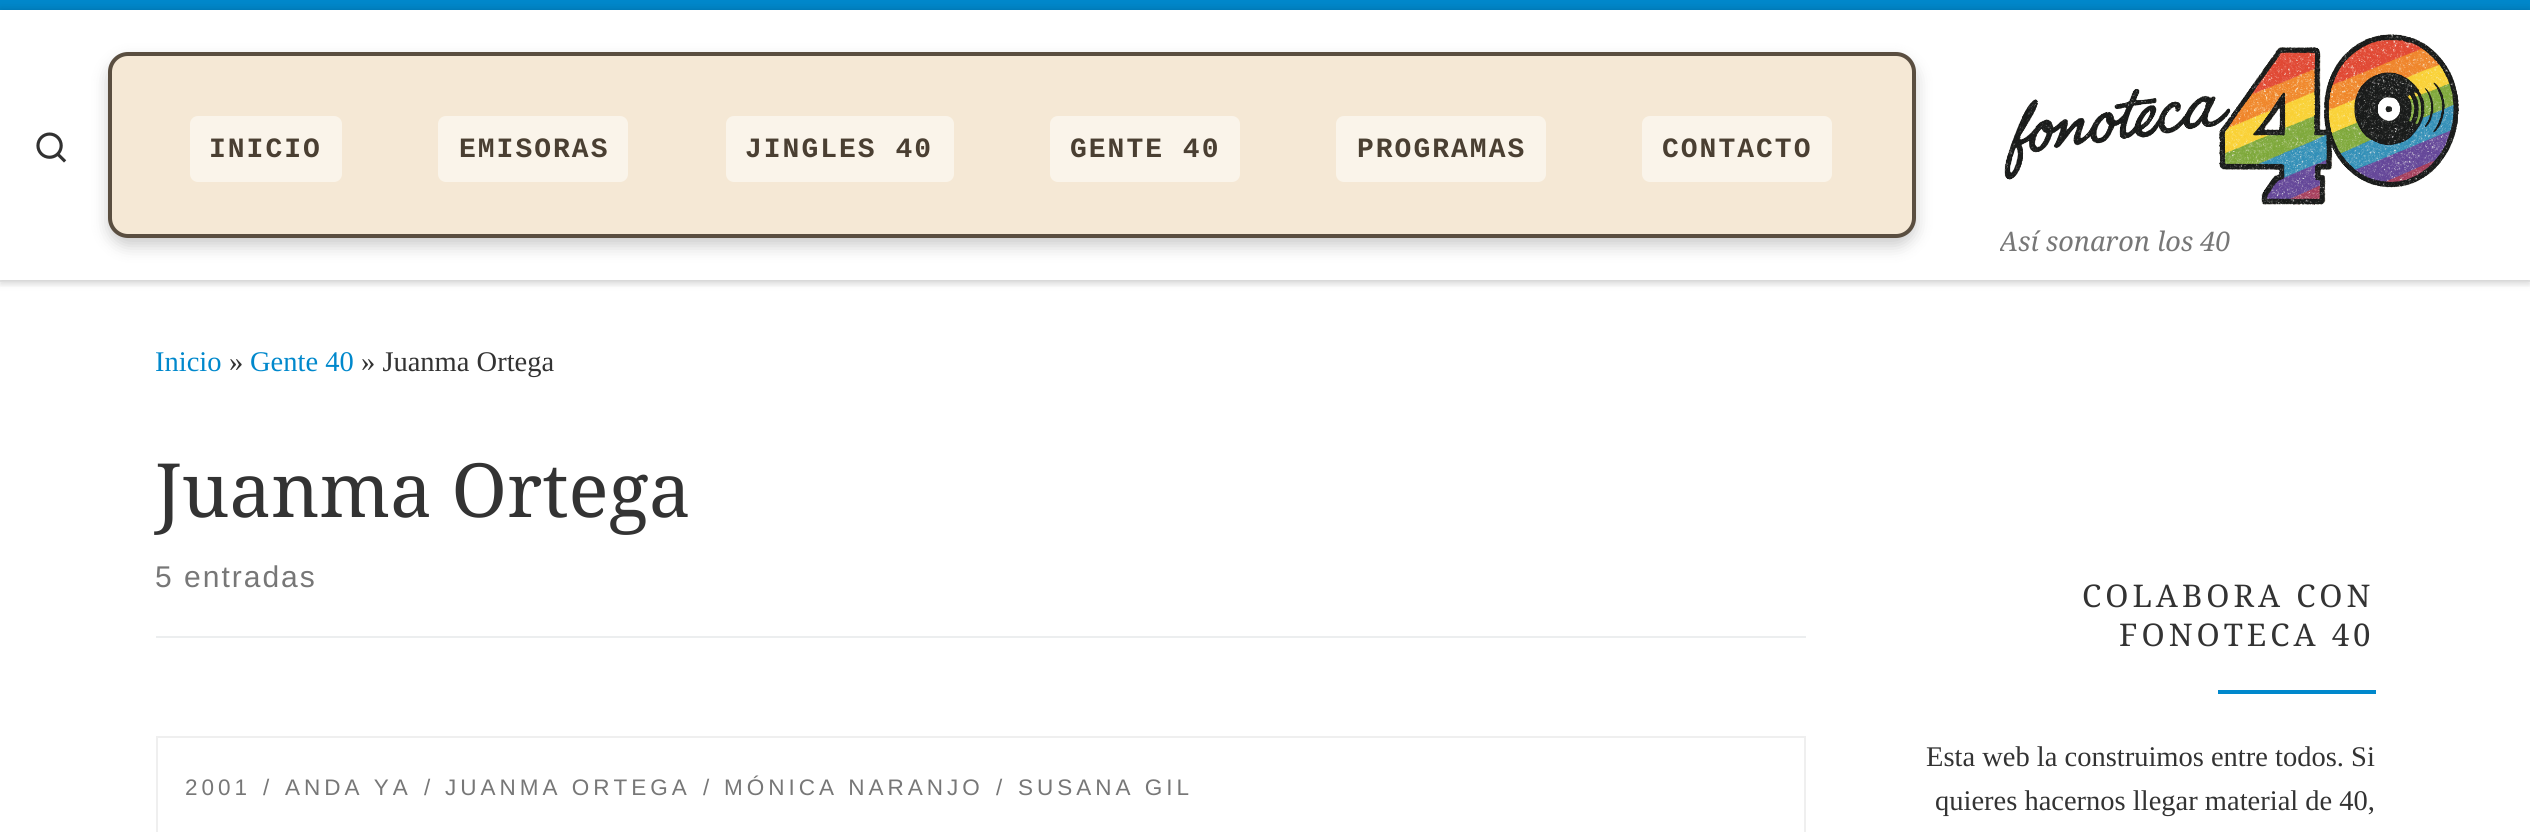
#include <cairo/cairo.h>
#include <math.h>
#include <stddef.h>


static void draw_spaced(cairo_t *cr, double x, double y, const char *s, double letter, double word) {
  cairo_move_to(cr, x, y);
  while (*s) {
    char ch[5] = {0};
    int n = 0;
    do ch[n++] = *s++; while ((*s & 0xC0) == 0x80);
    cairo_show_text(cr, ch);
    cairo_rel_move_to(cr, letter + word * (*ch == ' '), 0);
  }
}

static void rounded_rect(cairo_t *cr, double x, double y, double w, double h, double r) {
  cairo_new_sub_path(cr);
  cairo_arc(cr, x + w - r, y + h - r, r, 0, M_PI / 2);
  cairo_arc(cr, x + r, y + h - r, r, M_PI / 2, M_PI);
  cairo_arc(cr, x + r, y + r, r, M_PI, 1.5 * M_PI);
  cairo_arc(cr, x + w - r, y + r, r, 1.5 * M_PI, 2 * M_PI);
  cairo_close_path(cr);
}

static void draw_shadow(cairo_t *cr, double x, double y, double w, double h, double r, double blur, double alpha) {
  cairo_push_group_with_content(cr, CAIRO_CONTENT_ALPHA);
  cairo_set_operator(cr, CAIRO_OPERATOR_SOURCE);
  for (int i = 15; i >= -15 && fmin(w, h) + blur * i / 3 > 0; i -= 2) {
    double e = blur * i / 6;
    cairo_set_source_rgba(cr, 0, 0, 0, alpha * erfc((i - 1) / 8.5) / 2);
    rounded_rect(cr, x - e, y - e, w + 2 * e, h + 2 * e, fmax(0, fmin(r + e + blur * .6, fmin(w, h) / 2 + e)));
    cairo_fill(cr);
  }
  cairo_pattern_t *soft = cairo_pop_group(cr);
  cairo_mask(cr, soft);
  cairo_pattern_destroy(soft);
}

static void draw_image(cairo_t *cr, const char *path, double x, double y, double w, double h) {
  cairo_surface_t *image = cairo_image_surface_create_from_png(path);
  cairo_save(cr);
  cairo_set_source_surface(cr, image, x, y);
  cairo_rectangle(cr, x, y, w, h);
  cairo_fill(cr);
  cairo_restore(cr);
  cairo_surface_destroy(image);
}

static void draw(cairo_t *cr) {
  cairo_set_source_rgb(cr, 1, 1, 1);
  cairo_paint(cr);
  cairo_save(cr);
  cairo_rectangle(cr, 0, 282, 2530, 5);
  cairo_clip(cr);
  cairo_set_source_rgb(cr, 102 / 255.0, 102 / 255.0, 102 / 255.0);
  draw_shadow(cr, 0, 4, 2530, 282, 0, 2, 0.08);
  cairo_restore(cr);
  cairo_set_source_rgb(cr, 0, 136 / 255.0, 204 / 255.0);
  cairo_rectangle(cr, 0, 0, 2530, 10);
  cairo_fill(cr);
  cairo_set_source_rgb(cr, 239 / 255.0, 239 / 255.0, 239 / 255.0);
  cairo_rectangle(cr, 0, 280, 2530, 2);
  cairo_fill(cr);
  cairo_save(cr);
  cairo_set_fill_rule(cr, CAIRO_FILL_RULE_EVEN_ODD);
  cairo_new_path(cr);
  cairo_move_to(cr, 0, 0);
  cairo_line_to(cr, 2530, 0);
  cairo_line_to(cr, 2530, 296);
  cairo_line_to(cr, 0, 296);
  cairo_close_path(cr);
  cairo_move_to(cr, 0, 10);
  cairo_line_to(cr, 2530, 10);
  cairo_line_to(cr, 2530, 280);
  cairo_line_to(cr, 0, 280);
  cairo_close_path(cr);
  cairo_clip(cr);
  cairo_set_source_rgb(cr, 0, 0, 0);
  draw_shadow(cr, 0, 10, 2530, 270, 0, 5, 0.2);
  cairo_restore(cr);
  draw_image(cr, "images/1.png", 36, 132, 31, 31);
  cairo_set_source_rgb(cr, 0, 0, 0);
  draw_shadow(cr, 108, 60, 1808, 186, 20, 8, 0.2);
  cairo_set_source_rgb(cr, 245 / 255.0, 232 / 255.0, 213 / 255.0);
  rounded_rect(cr, 110, 54, 1804, 182, 18);
  cairo_fill_preserve(cr);
  cairo_set_source_rgb(cr, 90 / 255.0, 78 / 255.0, 64 / 255.0);
  cairo_set_line_width(cr, 4);
  cairo_stroke(cr);
  cairo_set_source_rgb(cr, 250 / 255.0, 244 / 255.0, 234 / 255.0);
  rounded_rect(cr, 190, 116, 152, 66, 8);
  cairo_fill(cr);
  rounded_rect(cr, 438, 116, 190, 66, 8);
  cairo_fill(cr);
  rounded_rect(cr, 726, 116, 228, 66, 8);
  cairo_fill(cr);
  rounded_rect(cr, 1050, 116, 190, 66, 8);
  cairo_fill(cr);
  rounded_rect(cr, 1336, 116, 210, 66, 8);
  cairo_fill(cr);
  rounded_rect(cr, 1642, 116, 190, 66, 8);
  cairo_fill(cr);
  draw_image(cr, "images/2.png", 2004, 34, 455, 171);
  cairo_set_source_rgb(cr, 236 / 255.0, 238 / 255.0, 239 / 255.0);
  cairo_rectangle(cr, 156, 636, 1650, 2);
  cairo_fill(cr);
  cairo_rectangle(cr, 157, 737, 1648, 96);
  cairo_set_source_rgb(cr, 239 / 255.0, 239 / 255.0, 239 / 255.0);
  cairo_set_line_width(cr, 2);
  cairo_stroke(cr);
  cairo_set_source_rgb(cr, 0, 136 / 255.0, 204 / 255.0);
  cairo_rectangle(cr, 2218, 690, 158, 4);
  cairo_fill(cr);
  cairo_select_font_face(cr, "Liberation Mono", CAIRO_FONT_SLANT_NORMAL, CAIRO_FONT_WEIGHT_BOLD);
  cairo_set_font_size(cr, 28);
  cairo_set_source_rgb(cr, 74 / 255.0, 63 / 255.0, 50 / 255.0);
  draw_spaced(cr, 209, 157, "INICIO", 2, 0);
  draw_spaced(cr, 459, 157, "EMISORAS", 2, 0);
  draw_spaced(cr, 745, 157, "JINGLES 40", 2, 0);
  draw_spaced(cr, 1070, 157, "GENTE 40", 2, 0);
  draw_spaced(cr, 1357, 157, "PROGRAMAS", 2, 0);
  draw_spaced(cr, 1662, 157, "CONTACTO", 2, 0);
  cairo_save(cr);
  cairo_rectangle(cr, 2000, 10, 500, 270);
  cairo_clip(cr);
  cairo_select_font_face(cr, "Noto Serif", CAIRO_FONT_SLANT_ITALIC, CAIRO_FONT_WEIGHT_NORMAL);
  cairo_set_font_size(cr, 27);
  cairo_set_source_rgb(cr, 119 / 255.0, 119 / 255.0, 119 / 255.0);
  cairo_move_to(cr, 1999, 251);
  cairo_show_text(cr, "Así sonaron los 40");
  cairo_restore(cr);
  cairo_select_font_face(cr, "Liberation Serif", CAIRO_FONT_SLANT_NORMAL, CAIRO_FONT_WEIGHT_NORMAL);
  cairo_set_font_size(cr, 28.5);
  cairo_set_source_rgb(cr, 0, 136 / 255.0, 204 / 255.0);
  cairo_move_to(cr, 155, 371);
  cairo_show_text(cr, "Inicio");
  cairo_set_source_rgb(cr, 51 / 255.0, 51 / 255.0, 51 / 255.0);
  cairo_move_to(cr, 229, 371);
  cairo_show_text(cr, "»");
  cairo_set_source_rgb(cr, 0, 136 / 255.0, 204 / 255.0);
  cairo_move_to(cr, 250, 371);
  cairo_show_text(cr, "Gente 40");
  cairo_set_source_rgb(cr, 51 / 255.0, 51 / 255.0, 51 / 255.0);
  cairo_move_to(cr, 361, 371);
  cairo_show_text(cr, "» Juanma Ortega");
  cairo_select_font_face(cr, "Noto Serif", CAIRO_FONT_SLANT_NORMAL, CAIRO_FONT_WEIGHT_NORMAL);
  cairo_set_font_size(cr, 74.75);
  cairo_move_to(cr, 155, 517);
  cairo_show_text(cr, "Juanma Ortega");
  cairo_select_font_face(cr, "Liberation Sans", CAIRO_FONT_SLANT_NORMAL, CAIRO_FONT_WEIGHT_NORMAL);
  cairo_set_font_size(cr, 30);
  cairo_set_source_rgb(cr, 119 / 255.0, 119 / 255.0, 119 / 255.0);
  draw_spaced(cr, 155, 587, "5 entradas", 2, 0);
  cairo_set_font_size(cr, 22.5);
  draw_spaced(cr, 185, 795, "2001", 4, 0);
  draw_spaced(cr, 263, 795, "/", 4, 0);
  draw_spaced(cr, 285, 795, "ANDA YA", 4, 0);
  draw_spaced(cr, 424, 795, "/", 4, 0);
  draw_spaced(cr, 445, 795, "JUANMA ORTEGA", 4, 0);
  draw_spaced(cr, 703, 795, "/", 4, 0);
  draw_spaced(cr, 724, 795, "MÓNICA NARANJO", 4, 0);
  draw_spaced(cr, 996, 795, "/", 4, 0);
  draw_spaced(cr, 1018, 795, "SUSANA GIL", 4, 0);
  cairo_select_font_face(cr, "Noto Serif", CAIRO_FONT_SLANT_NORMAL, CAIRO_FONT_WEIGHT_NORMAL);
  cairo_set_font_size(cr, 31.25);
  cairo_set_source_rgb(cr, 51 / 255.0, 51 / 255.0, 51 / 255.0);
  draw_spaced(cr, 2082, 607, "COLABORA CON", 4, 0);
  draw_spaced(cr, 2119, 646, "FONOTECA 40", 4, 0);
  cairo_select_font_face(cr, "Liberation Serif", CAIRO_FONT_SLANT_NORMAL, CAIRO_FONT_WEIGHT_NORMAL);
  cairo_set_font_size(cr, 28.5);
  cairo_move_to(cr, 1926, 766);
  cairo_show_text(cr, "Esta web la construimos entre todos. Si");
  cairo_move_to(cr, 1935, 810);
  cairo_show_text(cr, "quieres hacernos llegar material de 40,");
}

int main(void) {
  cairo_surface_t *surface = cairo_image_surface_create(CAIRO_FORMAT_RGB24, 2530, 832);
  cairo_t *cr = cairo_create(surface);
  cairo_font_options_t *options = cairo_font_options_create();
  cairo_font_options_set_hint_metrics(options, CAIRO_HINT_METRICS_OFF);
  cairo_font_options_set_hint_style(options, CAIRO_HINT_STYLE_NONE);
  cairo_set_font_options(cr, options);
  cairo_set_miter_limit(cr, 4);
  draw(cr);
  cairo_surface_write_to_png(surface, "out.png");
  cairo_font_options_destroy(options);
  cairo_destroy(cr);
  cairo_surface_destroy(surface);
  return 0;
}
